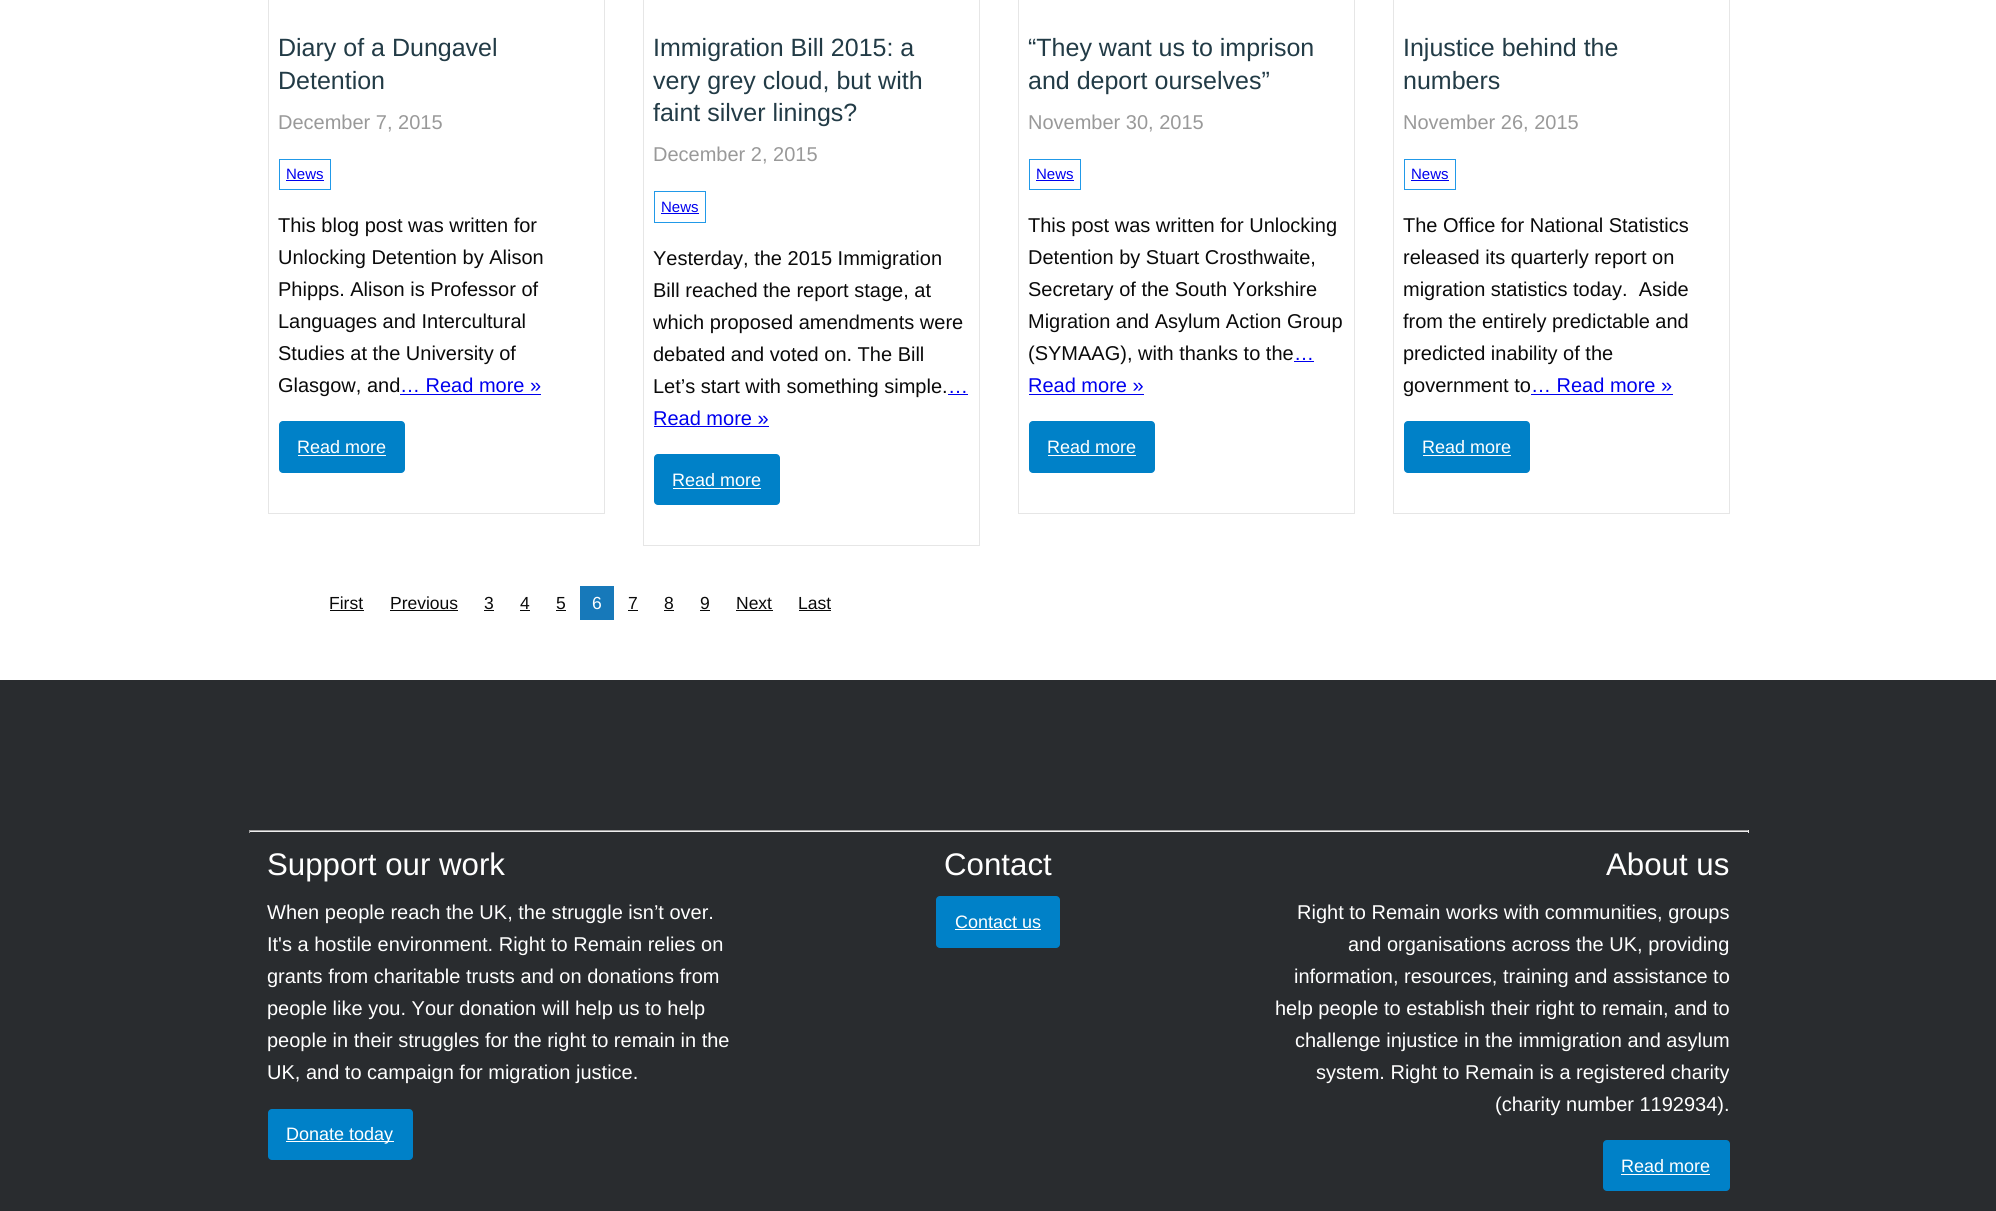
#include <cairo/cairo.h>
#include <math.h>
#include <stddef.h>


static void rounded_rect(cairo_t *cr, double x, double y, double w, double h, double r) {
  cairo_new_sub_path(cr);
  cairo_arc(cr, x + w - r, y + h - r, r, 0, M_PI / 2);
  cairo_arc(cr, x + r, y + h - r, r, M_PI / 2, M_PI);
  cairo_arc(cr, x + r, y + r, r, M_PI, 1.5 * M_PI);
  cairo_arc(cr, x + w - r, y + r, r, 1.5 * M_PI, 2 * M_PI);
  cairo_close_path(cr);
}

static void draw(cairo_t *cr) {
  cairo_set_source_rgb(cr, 1, 1, 1);
  cairo_paint(cr);
  cairo_rectangle(cr, 268.5, -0.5, 336, 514);
  cairo_set_source_rgb(cr, 230 / 255.0, 230 / 255.0, 230 / 255.0);
  cairo_set_line_width(cr, 1);
  cairo_stroke(cr);
  cairo_rectangle(cr, 279.5, 159.5, 51, 30);
  cairo_set_source_rgb(cr, 33 / 255.0, 153 / 255.0, 232 / 255.0);
  cairo_stroke(cr);
  cairo_set_source_rgb(cr, 0, 0, 238 / 255.0);
  cairo_rectangle(cr, 286, 180, 38, 1);
  cairo_fill(cr);
  cairo_rectangle(cr, 400, 394, 141, 1);
  cairo_fill(cr);
  cairo_set_source_rgb(cr, 0, 129 / 255.0, 200 / 255.0);
  rounded_rect(cr, 279, 421, 126, 52, 4);
  cairo_fill(cr);
  cairo_set_source_rgb(cr, 1, 1, 1);
  cairo_rectangle(cr, 298, 455, 88, 1);
  cairo_fill(cr);
  cairo_rectangle(cr, 643.5, -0.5, 336, 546);
  cairo_set_source_rgb(cr, 230 / 255.0, 230 / 255.0, 230 / 255.0);
  cairo_stroke(cr);
  cairo_rectangle(cr, 654.5, 191.5, 51, 31);
  cairo_set_source_rgb(cr, 33 / 255.0, 153 / 255.0, 232 / 255.0);
  cairo_stroke(cr);
  cairo_set_source_rgb(cr, 0, 0, 238 / 255.0);
  cairo_rectangle(cr, 661, 213, 38, 1);
  cairo_fill(cr);
  cairo_rectangle(cr, 948, 394, 20, 1);
  cairo_fill(cr);
  cairo_rectangle(cr, 654, 426, 115, 1);
  cairo_fill(cr);
  cairo_set_source_rgb(cr, 0, 129 / 255.0, 200 / 255.0);
  rounded_rect(cr, 654, 454, 126, 51, 4);
  cairo_fill(cr);
  cairo_set_source_rgb(cr, 1, 1, 1);
  cairo_rectangle(cr, 673, 488, 88, 1);
  cairo_fill(cr);
  cairo_rectangle(cr, 1018.5, -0.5, 336, 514);
  cairo_set_source_rgb(cr, 230 / 255.0, 230 / 255.0, 230 / 255.0);
  cairo_stroke(cr);
  cairo_rectangle(cr, 1029.5, 159.5, 51, 30);
  cairo_set_source_rgb(cr, 33 / 255.0, 153 / 255.0, 232 / 255.0);
  cairo_stroke(cr);
  cairo_set_source_rgb(cr, 0, 0, 238 / 255.0);
  cairo_rectangle(cr, 1036, 180, 38, 1);
  cairo_fill(cr);
  cairo_rectangle(cr, 1294, 361, 20, 1);
  cairo_fill(cr);
  cairo_rectangle(cr, 1029, 394, 115, 1);
  cairo_fill(cr);
  cairo_set_source_rgb(cr, 0, 129 / 255.0, 200 / 255.0);
  rounded_rect(cr, 1029, 421, 126, 52, 4);
  cairo_fill(cr);
  cairo_set_source_rgb(cr, 1, 1, 1);
  cairo_rectangle(cr, 1048, 455, 88, 1);
  cairo_fill(cr);
  cairo_rectangle(cr, 1393.5, -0.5, 336, 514);
  cairo_set_source_rgb(cr, 230 / 255.0, 230 / 255.0, 230 / 255.0);
  cairo_stroke(cr);
  cairo_rectangle(cr, 1404.5, 159.5, 51, 30);
  cairo_set_source_rgb(cr, 33 / 255.0, 153 / 255.0, 232 / 255.0);
  cairo_stroke(cr);
  cairo_set_source_rgb(cr, 0, 0, 238 / 255.0);
  cairo_rectangle(cr, 1411, 180, 38, 1);
  cairo_fill(cr);
  cairo_rectangle(cr, 1531, 394, 142, 1);
  cairo_fill(cr);
  cairo_set_source_rgb(cr, 0, 129 / 255.0, 200 / 255.0);
  rounded_rect(cr, 1404, 421, 126, 52, 4);
  cairo_fill(cr);
  cairo_set_source_rgb(cr, 1, 1, 1);
  cairo_rectangle(cr, 1423, 455, 88, 1);
  cairo_fill(cr);
  cairo_set_source_rgb(cr, 10 / 255.0, 10 / 255.0, 10 / 255.0);
  cairo_rectangle(cr, 330, 610, 34, 1);
  cairo_fill(cr);
  cairo_rectangle(cr, 390, 610, 68, 1);
  cairo_fill(cr);
  cairo_rectangle(cr, 484, 610, 10, 1);
  cairo_fill(cr);
  cairo_rectangle(cr, 520, 610, 10, 1);
  cairo_fill(cr);
  cairo_rectangle(cr, 556, 610, 10, 1);
  cairo_fill(cr);
  cairo_set_source_rgb(cr, 23 / 255.0, 121 / 255.0, 186 / 255.0);
  cairo_rectangle(cr, 580, 586, 34, 34);
  cairo_fill(cr);
  cairo_set_source_rgb(cr, 10 / 255.0, 10 / 255.0, 10 / 255.0);
  cairo_rectangle(cr, 628, 610, 10, 1);
  cairo_fill(cr);
  cairo_rectangle(cr, 664, 610, 10, 1);
  cairo_fill(cr);
  cairo_rectangle(cr, 700, 610, 10, 1);
  cairo_fill(cr);
  cairo_rectangle(cr, 736, 610, 37, 1);
  cairo_fill(cr);
  cairo_rectangle(cr, 799, 610, 32, 1);
  cairo_fill(cr);
  cairo_set_source_rgb(cr, 41 / 255.0, 44 / 255.0, 47 / 255.0);
  cairo_rectangle(cr, 0, 680, 1996, 531);
  cairo_fill(cr);
  cairo_set_source_rgb(cr, 159 / 255.0, 159 / 255.0, 159 / 255.0);
  cairo_rectangle(cr, 249, 830, 1500, 1);
  cairo_fill(cr);
  cairo_set_source_rgb(cr, 238 / 255.0, 238 / 255.0, 238 / 255.0);
  cairo_rectangle(cr, 1748, 830, 1, 3);
  cairo_fill(cr);
  cairo_rectangle(cr, 249, 831, 1500, 1);
  cairo_fill(cr);
  cairo_set_source_rgb(cr, 159 / 255.0, 159 / 255.0, 159 / 255.0);
  cairo_rectangle(cr, 249, 830, 1, 3);
  cairo_fill(cr);
  cairo_set_source_rgb(cr, 0, 129 / 255.0, 200 / 255.0);
  rounded_rect(cr, 268, 1109, 145, 51, 4);
  cairo_fill(cr);
  cairo_set_source_rgb(cr, 1, 1, 1);
  cairo_rectangle(cr, 286, 1141, 108, 1);
  cairo_fill(cr);
  cairo_set_source_rgb(cr, 0, 129 / 255.0, 200 / 255.0);
  rounded_rect(cr, 936, 896, 124, 52, 4);
  cairo_fill(cr);
  cairo_set_source_rgb(cr, 1, 1, 1);
  cairo_rectangle(cr, 955, 929, 86, 1);
  cairo_fill(cr);
  cairo_set_source_rgb(cr, 0, 129 / 255.0, 200 / 255.0);
  rounded_rect(cr, 1603, 1140, 127, 51, 4);
  cairo_fill(cr);
  cairo_set_source_rgb(cr, 1, 1, 1);
  cairo_rectangle(cr, 1621, 1174, 89, 1);
  cairo_fill(cr);
  cairo_select_font_face(cr, "Liberation Sans", CAIRO_FONT_SLANT_NORMAL, CAIRO_FONT_WEIGHT_NORMAL);
  cairo_set_font_size(cr, 25);
  cairo_set_source_rgb(cr, 34 / 255.0, 59 / 255.0, 70 / 255.0);
  cairo_move_to(cr, 278, 56);
  cairo_show_text(cr, "Diary of a Dungavel");
  cairo_move_to(cr, 278, 89);
  cairo_show_text(cr, "Detention");
  cairo_set_font_size(cr, 20);
  cairo_set_source_rgb(cr, 153 / 255.0, 153 / 255.0, 153 / 255.0);
  cairo_move_to(cr, 278, 129);
  cairo_show_text(cr, "December 7, 2015");
  cairo_set_font_size(cr, 15);
  cairo_set_source_rgb(cr, 0, 0, 238 / 255.0);
  cairo_move_to(cr, 286, 179);
  cairo_show_text(cr, "News");
  cairo_set_font_size(cr, 20);
  cairo_set_source_rgb(cr, 10 / 255.0, 10 / 255.0, 10 / 255.0);
  cairo_move_to(cr, 278, 232);
  cairo_show_text(cr, "This blog post was written for");
  cairo_move_to(cr, 278, 264);
  cairo_show_text(cr, "Unlocking Detention by Alison");
  cairo_move_to(cr, 278, 296);
  cairo_show_text(cr, "Phipps. Alison is Professor of");
  cairo_move_to(cr, 278, 328);
  cairo_show_text(cr, "Languages and Intercultural");
  cairo_move_to(cr, 278, 360);
  cairo_show_text(cr, "Studies at the University of");
  cairo_move_to(cr, 278, 392);
  cairo_show_text(cr, "Glasgow, and");
  cairo_set_source_rgb(cr, 0, 0, 238 / 255.0);
  cairo_move_to(cr, 400, 392);
  cairo_show_text(cr, "… Read more »");
  cairo_set_font_size(cr, 18);
  cairo_set_source_rgb(cr, 1, 1, 1);
  cairo_move_to(cr, 297, 453);
  cairo_show_text(cr, "Read more");
  cairo_set_font_size(cr, 25);
  cairo_set_source_rgb(cr, 34 / 255.0, 59 / 255.0, 70 / 255.0);
  cairo_move_to(cr, 653, 56);
  cairo_show_text(cr, "Immigration Bill 2015: a");
  cairo_move_to(cr, 653, 89);
  cairo_show_text(cr, "very grey cloud, but with");
  cairo_move_to(cr, 653, 121);
  cairo_show_text(cr, "faint silver linings?");
  cairo_set_font_size(cr, 20);
  cairo_set_source_rgb(cr, 153 / 255.0, 153 / 255.0, 153 / 255.0);
  cairo_move_to(cr, 653, 161);
  cairo_show_text(cr, "December 2, 2015");
  cairo_set_font_size(cr, 15);
  cairo_set_source_rgb(cr, 0, 0, 238 / 255.0);
  cairo_move_to(cr, 661, 212);
  cairo_show_text(cr, "News");
  cairo_set_font_size(cr, 20);
  cairo_set_source_rgb(cr, 10 / 255.0, 10 / 255.0, 10 / 255.0);
  cairo_move_to(cr, 653, 265);
  cairo_show_text(cr, "Yesterday, the 2015 Immigration");
  cairo_move_to(cr, 653, 297);
  cairo_show_text(cr, "Bill reached the report stage, at");
  cairo_move_to(cr, 653, 329);
  cairo_show_text(cr, "which proposed amendments were");
  cairo_move_to(cr, 653, 361);
  cairo_show_text(cr, "debated and voted on. The Bill");
  cairo_move_to(cr, 653, 393);
  cairo_show_text(cr, "Let’s start with something simple.");
  cairo_set_source_rgb(cr, 0, 0, 238 / 255.0);
  cairo_move_to(cr, 948, 393);
  cairo_show_text(cr, "…");
  cairo_move_to(cr, 653, 425);
  cairo_show_text(cr, "Read more »");
  cairo_set_font_size(cr, 18);
  cairo_set_source_rgb(cr, 1, 1, 1);
  cairo_move_to(cr, 672, 486);
  cairo_show_text(cr, "Read more");
  cairo_set_font_size(cr, 25);
  cairo_set_source_rgb(cr, 34 / 255.0, 59 / 255.0, 70 / 255.0);
  cairo_move_to(cr, 1028, 56);
  cairo_show_text(cr, "“They want us to imprison");
  cairo_move_to(cr, 1028, 89);
  cairo_show_text(cr, "and deport ourselves”");
  cairo_set_font_size(cr, 20);
  cairo_set_source_rgb(cr, 153 / 255.0, 153 / 255.0, 153 / 255.0);
  cairo_move_to(cr, 1028, 129);
  cairo_show_text(cr, "November 30, 2015");
  cairo_set_font_size(cr, 15);
  cairo_set_source_rgb(cr, 0, 0, 238 / 255.0);
  cairo_move_to(cr, 1036, 179);
  cairo_show_text(cr, "News");
  cairo_set_font_size(cr, 20);
  cairo_set_source_rgb(cr, 10 / 255.0, 10 / 255.0, 10 / 255.0);
  cairo_move_to(cr, 1028, 232);
  cairo_show_text(cr, "This post was written for Unlocking");
  cairo_move_to(cr, 1028, 264);
  cairo_show_text(cr, "Detention by Stuart Crosthwaite,");
  cairo_move_to(cr, 1028, 296);
  cairo_show_text(cr, "Secretary of the South Yorkshire");
  cairo_move_to(cr, 1028, 328);
  cairo_show_text(cr, "Migration and Asylum Action Group");
  cairo_move_to(cr, 1028, 360);
  cairo_show_text(cr, "(SYMAAG), with thanks to the");
  cairo_set_source_rgb(cr, 0, 0, 238 / 255.0);
  cairo_move_to(cr, 1294, 360);
  cairo_show_text(cr, "…");
  cairo_move_to(cr, 1028, 392);
  cairo_show_text(cr, "Read more »");
  cairo_set_font_size(cr, 18);
  cairo_set_source_rgb(cr, 1, 1, 1);
  cairo_move_to(cr, 1047, 453);
  cairo_show_text(cr, "Read more");
  cairo_set_font_size(cr, 25);
  cairo_set_source_rgb(cr, 34 / 255.0, 59 / 255.0, 70 / 255.0);
  cairo_move_to(cr, 1403, 56);
  cairo_show_text(cr, "Injustice behind the");
  cairo_move_to(cr, 1403, 89);
  cairo_show_text(cr, "numbers");
  cairo_set_font_size(cr, 20);
  cairo_set_source_rgb(cr, 153 / 255.0, 153 / 255.0, 153 / 255.0);
  cairo_move_to(cr, 1403, 129);
  cairo_show_text(cr, "November 26, 2015");
  cairo_set_font_size(cr, 15);
  cairo_set_source_rgb(cr, 0, 0, 238 / 255.0);
  cairo_move_to(cr, 1411, 179);
  cairo_show_text(cr, "News");
  cairo_set_font_size(cr, 20);
  cairo_set_source_rgb(cr, 10 / 255.0, 10 / 255.0, 10 / 255.0);
  cairo_move_to(cr, 1403, 232);
  cairo_show_text(cr, "The Office for National Statistics");
  cairo_move_to(cr, 1403, 264);
  cairo_show_text(cr, "released its quarterly report on");
  cairo_move_to(cr, 1403, 296);
  cairo_show_text(cr, "migration statistics today.  Aside");
  cairo_move_to(cr, 1403, 328);
  cairo_show_text(cr, "from the entirely predictable and");
  cairo_move_to(cr, 1403, 360);
  cairo_show_text(cr, "predicted inability of the");
  cairo_move_to(cr, 1403, 392);
  cairo_show_text(cr, "government to");
  cairo_set_source_rgb(cr, 0, 0, 238 / 255.0);
  cairo_move_to(cr, 1531, 392);
  cairo_show_text(cr, "… Read more »");
  cairo_set_font_size(cr, 18);
  cairo_set_source_rgb(cr, 1, 1, 1);
  cairo_move_to(cr, 1422, 453);
  cairo_show_text(cr, "Read more");
  cairo_set_font_size(cr, 17.5);
  cairo_set_source_rgb(cr, 10 / 255.0, 10 / 255.0, 10 / 255.0);
  cairo_move_to(cr, 329, 609);
  cairo_show_text(cr, "First");
  cairo_move_to(cr, 390, 609);
  cairo_show_text(cr, "Previous");
  cairo_move_to(cr, 484, 609);
  cairo_show_text(cr, "3");
  cairo_move_to(cr, 520, 609);
  cairo_show_text(cr, "4");
  cairo_move_to(cr, 556, 609);
  cairo_show_text(cr, "5");
  cairo_set_source_rgb(cr, 1, 1, 1);
  cairo_move_to(cr, 592, 609);
  cairo_show_text(cr, "6");
  cairo_set_source_rgb(cr, 10 / 255.0, 10 / 255.0, 10 / 255.0);
  cairo_move_to(cr, 628, 609);
  cairo_show_text(cr, "7");
  cairo_move_to(cr, 664, 609);
  cairo_show_text(cr, "8");
  cairo_move_to(cr, 700, 609);
  cairo_show_text(cr, "9");
  cairo_move_to(cr, 736, 609);
  cairo_show_text(cr, "Next");
  cairo_move_to(cr, 798, 609);
  cairo_show_text(cr, "Last");
  cairo_set_font_size(cr, 31.25);
  cairo_set_source_rgb(cr, 1, 1, 1);
  cairo_move_to(cr, 267, 875);
  cairo_show_text(cr, "Support our work");
  cairo_set_font_size(cr, 20);
  cairo_move_to(cr, 267, 919);
  cairo_show_text(cr, "When people reach the UK, the struggle isn’t over.");
  cairo_move_to(cr, 267, 951);
  cairo_show_text(cr, "It's a hostile environment. Right to Remain relies on");
  cairo_move_to(cr, 267, 983);
  cairo_show_text(cr, "grants from charitable trusts and on donations from");
  cairo_move_to(cr, 267, 1015);
  cairo_show_text(cr, "people like you. Your donation will help us to help");
  cairo_move_to(cr, 267, 1047);
  cairo_show_text(cr, "people in their struggles for the right to remain in the");
  cairo_move_to(cr, 267, 1079);
  cairo_show_text(cr, "UK, and to campaign for migration justice.");
  cairo_set_font_size(cr, 18);
  cairo_move_to(cr, 286, 1140);
  cairo_show_text(cr, "Donate today");
  cairo_set_font_size(cr, 31.25);
  cairo_move_to(cr, 944, 875);
  cairo_show_text(cr, "Contact");
  cairo_set_font_size(cr, 18);
  cairo_move_to(cr, 955, 928);
  cairo_show_text(cr, "Contact us");
  cairo_set_font_size(cr, 31.25);
  cairo_move_to(cr, 1606, 875);
  cairo_show_text(cr, "About us");
  cairo_set_font_size(cr, 20);
  cairo_move_to(cr, 1297, 919);
  cairo_show_text(cr, "Right to Remain works with communities, groups");
  cairo_move_to(cr, 1348, 951);
  cairo_show_text(cr, "and organisations across the UK, providing");
  cairo_move_to(cr, 1294, 983);
  cairo_show_text(cr, "information, resources, training and assistance to");
  cairo_move_to(cr, 1275, 1015);
  cairo_show_text(cr, "help people to establish their right to remain, and to");
  cairo_move_to(cr, 1295, 1047);
  cairo_show_text(cr, "challenge injustice in the immigration and asylum");
  cairo_move_to(cr, 1316, 1079);
  cairo_show_text(cr, "system. Right to Remain is a registered charity");
  cairo_move_to(cr, 1495, 1111);
  cairo_show_text(cr, "(charity number 1192934).");
  cairo_set_font_size(cr, 18);
  cairo_move_to(cr, 1621, 1172);
  cairo_show_text(cr, "Read more");
}

int main(void) {
  cairo_surface_t *surface = cairo_image_surface_create(CAIRO_FORMAT_RGB24, 1996, 1211);
  cairo_t *cr = cairo_create(surface);
  cairo_font_options_t *options = cairo_font_options_create();
  cairo_font_options_set_hint_metrics(options, CAIRO_HINT_METRICS_OFF);
  cairo_font_options_set_hint_style(options, CAIRO_HINT_STYLE_NONE);
  cairo_set_font_options(cr, options);
  cairo_set_miter_limit(cr, 4);
  draw(cr);
  cairo_surface_write_to_png(surface, "out.png");
  cairo_font_options_destroy(options);
  cairo_destroy(cr);
  cairo_surface_destroy(surface);
  return 0;
}
